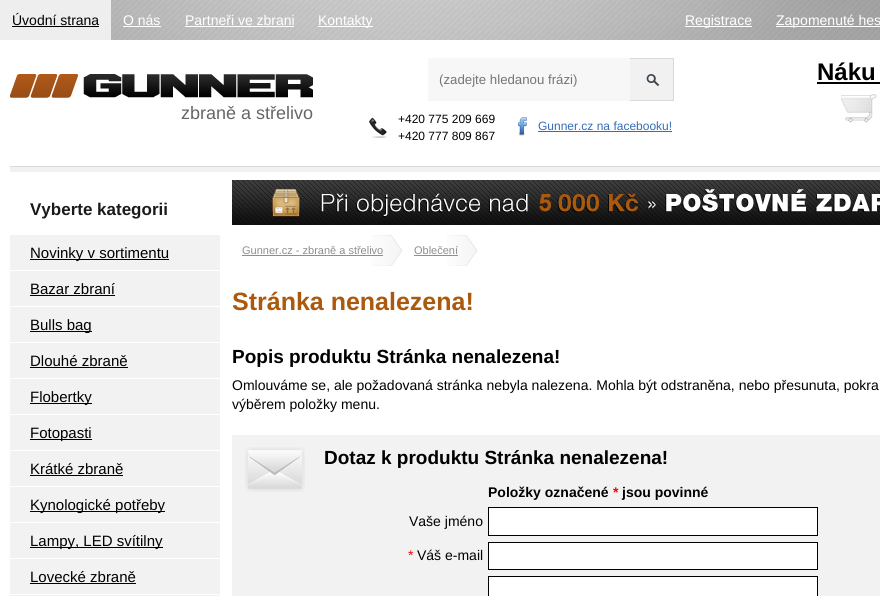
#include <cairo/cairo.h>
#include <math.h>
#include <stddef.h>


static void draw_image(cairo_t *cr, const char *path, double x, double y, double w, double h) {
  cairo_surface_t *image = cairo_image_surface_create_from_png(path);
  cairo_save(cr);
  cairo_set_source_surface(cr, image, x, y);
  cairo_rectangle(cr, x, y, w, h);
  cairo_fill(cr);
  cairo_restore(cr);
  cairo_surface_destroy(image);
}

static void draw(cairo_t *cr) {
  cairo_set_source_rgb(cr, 1, 1, 1);
  cairo_paint(cr);
  draw_image(cr, "images/1.png", 111, 0, 769, 40);
  cairo_set_source_rgb(cr, 238 / 255.0, 238 / 255.0, 238 / 255.0);
  cairo_rectangle(cr, 0, 0, 111, 40);
  cairo_fill(cr);
  cairo_set_source_rgb(cr, 0, 0, 0);
  cairo_rectangle(cr, 12, 26, 87, 1);
  cairo_fill(cr);
  cairo_set_source_rgb(cr, 1, 1, 1);
  cairo_rectangle(cr, 123, 26, 38, 1);
  cairo_fill(cr);
  cairo_rectangle(cr, 185, 26, 109, 1);
  cairo_fill(cr);
  cairo_rectangle(cr, 318, 26, 55, 1);
  cairo_fill(cr);
  cairo_rectangle(cr, 685, 26, 67, 1);
  cairo_fill(cr);
  cairo_rectangle(cr, 776, 26, 104, 1);
  cairo_fill(cr);
  cairo_set_source_rgb(cr, 247 / 255.0, 247 / 255.0, 247 / 255.0);
  cairo_rectangle(cr, 428, 58, 202, 43);
  cairo_fill(cr);
  draw_image(cr, "images/2.png", 630, 58, 44, 43);
  cairo_set_source_rgb(cr, 0, 0, 0);
  cairo_rectangle(cr, 817, 82, 63, 2);
  cairo_fill(cr);
  draw_image(cr, "images/3.png", 841, 94, 36, 29);
  draw_image(cr, "images/4.png", 10, 74, 303, 24);
  draw_image(cr, "images/5.png", 369, 117, 18, 21);
  draw_image(cr, "images/6.png", 518, 117, 9, 19);
  cairo_set_source_rgb(cr, 51 / 255.0, 109 / 255.0, 186 / 255.0);
  cairo_rectangle(cr, 538, 131, 134, 1);
  cairo_fill(cr);
  cairo_set_source_rgb(cr, 241 / 255.0, 241 / 255.0, 241 / 255.0);
  cairo_rectangle(cr, 10, 167, 870, 5);
  cairo_fill(cr);
  cairo_set_source_rgb(cr, 217 / 255.0, 217 / 255.0, 217 / 255.0);
  cairo_rectangle(cr, 10, 166, 870, 1);
  cairo_fill(cr);
  cairo_set_source_rgb(cr, 242 / 255.0, 242 / 255.0, 242 / 255.0);
  cairo_rectangle(cr, 10, 235, 210, 35);
  cairo_fill(cr);
  cairo_set_source_rgb(cr, 0, 0, 0);
  cairo_rectangle(cr, 30, 259, 139, 1);
  cairo_fill(cr);
  cairo_set_source_rgb(cr, 242 / 255.0, 242 / 255.0, 242 / 255.0);
  cairo_rectangle(cr, 10, 271, 210, 35);
  cairo_fill(cr);
  cairo_set_source_rgb(cr, 0, 0, 0);
  cairo_rectangle(cr, 30, 295, 85, 1);
  cairo_fill(cr);
  cairo_set_source_rgb(cr, 242 / 255.0, 242 / 255.0, 242 / 255.0);
  cairo_rectangle(cr, 10, 307, 210, 35);
  cairo_fill(cr);
  cairo_set_source_rgb(cr, 0, 0, 0);
  cairo_rectangle(cr, 30, 331, 62, 1);
  cairo_fill(cr);
  cairo_set_source_rgb(cr, 242 / 255.0, 242 / 255.0, 242 / 255.0);
  cairo_rectangle(cr, 10, 343, 210, 35);
  cairo_fill(cr);
  cairo_set_source_rgb(cr, 0, 0, 0);
  cairo_rectangle(cr, 30, 367, 98, 1);
  cairo_fill(cr);
  cairo_set_source_rgb(cr, 242 / 255.0, 242 / 255.0, 242 / 255.0);
  cairo_rectangle(cr, 10, 379, 210, 35);
  cairo_fill(cr);
  cairo_set_source_rgb(cr, 0, 0, 0);
  cairo_rectangle(cr, 30, 403, 62, 1);
  cairo_fill(cr);
  cairo_set_source_rgb(cr, 242 / 255.0, 242 / 255.0, 242 / 255.0);
  cairo_rectangle(cr, 10, 415, 210, 35);
  cairo_fill(cr);
  cairo_set_source_rgb(cr, 0, 0, 0);
  cairo_rectangle(cr, 30, 439, 62, 1);
  cairo_fill(cr);
  cairo_set_source_rgb(cr, 242 / 255.0, 242 / 255.0, 242 / 255.0);
  cairo_rectangle(cr, 10, 451, 210, 35);
  cairo_fill(cr);
  cairo_set_source_rgb(cr, 0, 0, 0);
  cairo_rectangle(cr, 30, 475, 93, 1);
  cairo_fill(cr);
  cairo_set_source_rgb(cr, 242 / 255.0, 242 / 255.0, 242 / 255.0);
  cairo_rectangle(cr, 10, 487, 210, 35);
  cairo_fill(cr);
  cairo_set_source_rgb(cr, 0, 0, 0);
  cairo_rectangle(cr, 30, 511, 135, 1);
  cairo_fill(cr);
  cairo_set_source_rgb(cr, 242 / 255.0, 242 / 255.0, 242 / 255.0);
  cairo_rectangle(cr, 10, 523, 210, 35);
  cairo_fill(cr);
  cairo_set_source_rgb(cr, 0, 0, 0);
  cairo_rectangle(cr, 30, 547, 133, 1);
  cairo_fill(cr);
  cairo_set_source_rgb(cr, 242 / 255.0, 242 / 255.0, 242 / 255.0);
  cairo_rectangle(cr, 10, 559, 210, 35);
  cairo_fill(cr);
  cairo_set_source_rgb(cr, 0, 0, 0);
  cairo_rectangle(cr, 30, 583, 106, 1);
  cairo_fill(cr);
  cairo_set_source_rgb(cr, 242 / 255.0, 242 / 255.0, 242 / 255.0);
  cairo_rectangle(cr, 10, 595, 210, 1);
  cairo_fill(cr);
  draw_image(cr, "images/7.png", 232, 180, 648, 45);
  draw_image(cr, "images/8.png", 371, 235, 32, 31);
  cairo_set_source_rgb(cr, 142 / 255.0, 142 / 255.0, 142 / 255.0);
  cairo_rectangle(cr, 242, 255, 141, 1);
  cairo_fill(cr);
  draw_image(cr, "images/8.png", 446, 235, 32, 31);
  cairo_rectangle(cr, 414, 255, 44, 1);
  cairo_fill(cr);
  cairo_set_source_rgb(cr, 242 / 255.0, 242 / 255.0, 242 / 255.0);
  cairo_rectangle(cr, 232, 435, 648, 161);
  cairo_fill(cr);
  draw_image(cr, "images/9.png", 245, 447, 60, 45);
  cairo_set_source_rgb(cr, 1, 1, 1);
  cairo_rectangle(cr, 488.5, 507.5, 329, 28);
  cairo_fill_preserve(cr);
  cairo_set_source_rgb(cr, 0, 0, 0);
  cairo_set_line_width(cr, 1);
  cairo_stroke(cr);
  cairo_set_source_rgb(cr, 1, 1, 1);
  cairo_rectangle(cr, 488.5, 542.5, 329, 27);
  cairo_fill_preserve(cr);
  cairo_set_source_rgb(cr, 0, 0, 0);
  cairo_stroke(cr);
  cairo_set_source_rgb(cr, 1, 1, 1);
  cairo_rectangle(cr, 488.5, 576.5, 329, 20);
  cairo_fill_preserve(cr);
  cairo_set_source_rgb(cr, 0, 0, 0);
  cairo_stroke(cr);
  cairo_select_font_face(cr, "Liberation Sans", CAIRO_FONT_SLANT_NORMAL, CAIRO_FONT_WEIGHT_NORMAL);
  cairo_set_font_size(cr, 14);
  cairo_move_to(cr, 12, 25);
  cairo_show_text(cr, "Úvodní strana");
  cairo_set_source_rgb(cr, 1, 1, 1);
  cairo_move_to(cr, 123, 25);
  cairo_show_text(cr, "O nás");
  cairo_move_to(cr, 185, 25);
  cairo_show_text(cr, "Partneři ve zbrani");
  cairo_move_to(cr, 318, 25);
  cairo_show_text(cr, "Kontakty");
  cairo_move_to(cr, 685, 25);
  cairo_show_text(cr, "Registrace");
  cairo_move_to(cr, 776, 25);
  cairo_show_text(cr, "Zapomenuté hes");
  cairo_set_font_size(cr, 13.25);
  cairo_set_source_rgb(cr, 117 / 255.0, 117 / 255.0, 117 / 255.0);
  cairo_move_to(cr, 439, 84);
  cairo_show_text(cr, "(zadejte hledanou frázi)");
  cairo_select_font_face(cr, "Liberation Sans", CAIRO_FONT_SLANT_NORMAL, CAIRO_FONT_WEIGHT_BOLD);
  cairo_set_font_size(cr, 24);
  cairo_set_source_rgb(cr, 0, 0, 0);
  cairo_move_to(cr, 817, 80);
  cairo_show_text(cr, "Náku");
  cairo_select_font_face(cr, "Liberation Sans", CAIRO_FONT_SLANT_NORMAL, CAIRO_FONT_WEIGHT_NORMAL);
  cairo_set_font_size(cr, 18);
  cairo_set_source_rgb(cr, 102 / 255.0, 102 / 255.0, 102 / 255.0);
  cairo_move_to(cr, 181, 119);
  cairo_show_text(cr, "zbraně a střelivo");
  cairo_set_font_size(cr, 12);
  cairo_set_source_rgb(cr, 0, 0, 0);
  cairo_move_to(cr, 398, 123);
  cairo_show_text(cr, "+420 775 209 669");
  cairo_move_to(cr, 398, 140);
  cairo_show_text(cr, "+420 777 809 867");
  cairo_set_source_rgb(cr, 51 / 255.0, 109 / 255.0, 186 / 255.0);
  cairo_move_to(cr, 538, 130);
  cairo_show_text(cr, "Gunner.cz na facebooku!");
  cairo_select_font_face(cr, "Liberation Sans", CAIRO_FONT_SLANT_NORMAL, CAIRO_FONT_WEIGHT_BOLD);
  cairo_set_font_size(cr, 17);
  cairo_set_source_rgb(cr, 26 / 255.0, 26 / 255.0, 26 / 255.0);
  cairo_move_to(cr, 30, 215);
  cairo_show_text(cr, "Vyberte kategorii");
  cairo_select_font_face(cr, "Liberation Sans", CAIRO_FONT_SLANT_NORMAL, CAIRO_FONT_WEIGHT_NORMAL);
  cairo_set_font_size(cr, 15);
  cairo_set_source_rgb(cr, 0, 0, 0);
  cairo_move_to(cr, 30, 258);
  cairo_show_text(cr, "Novinky v sortimentu");
  cairo_move_to(cr, 30, 294);
  cairo_show_text(cr, "Bazar zbraní");
  cairo_move_to(cr, 30, 330);
  cairo_show_text(cr, "Bulls bag");
  cairo_move_to(cr, 30, 366);
  cairo_show_text(cr, "Dlouhé zbraně");
  cairo_move_to(cr, 30, 402);
  cairo_show_text(cr, "Flobertky");
  cairo_move_to(cr, 30, 438);
  cairo_show_text(cr, "Fotopasti");
  cairo_move_to(cr, 30, 474);
  cairo_show_text(cr, "Krátké zbraně");
  cairo_move_to(cr, 30, 510);
  cairo_show_text(cr, "Kynologické potřeby");
  cairo_move_to(cr, 30, 546);
  cairo_show_text(cr, "Lampy, LED svítilny");
  cairo_move_to(cr, 30, 582);
  cairo_show_text(cr, "Lovecké zbraně");
  cairo_set_font_size(cr, 11);
  cairo_set_source_rgb(cr, 142 / 255.0, 142 / 255.0, 142 / 255.0);
  cairo_move_to(cr, 242, 254);
  cairo_show_text(cr, "Gunner.cz - zbraně a střelivo");
  cairo_move_to(cr, 414, 254);
  cairo_show_text(cr, "Oblečení");
  cairo_select_font_face(cr, "Liberation Sans", CAIRO_FONT_SLANT_NORMAL, CAIRO_FONT_WEIGHT_BOLD);
  cairo_set_font_size(cr, 25);
  cairo_set_source_rgb(cr, 171 / 255.0, 89 / 255.0, 12 / 255.0);
  cairo_move_to(cr, 232, 310);
  cairo_show_text(cr, "Stránka nenalezena!");
  cairo_set_font_size(cr, 19);
  cairo_set_source_rgb(cr, 0, 0, 0);
  cairo_move_to(cr, 232, 363);
  cairo_show_text(cr, "Popis produktu Stránka nenalezena!");
  cairo_select_font_face(cr, "Liberation Sans", CAIRO_FONT_SLANT_NORMAL, CAIRO_FONT_WEIGHT_NORMAL);
  cairo_set_font_size(cr, 14);
  cairo_move_to(cr, 232, 390);
  cairo_show_text(cr, "Omlouváme se, ale požadovaná stránka nebyla nalezena. Mohla být odstraněna, nebo přesunuta, pokra");
  cairo_move_to(cr, 232, 409);
  cairo_show_text(cr, "výběrem položky menu.");
  cairo_select_font_face(cr, "Liberation Sans", CAIRO_FONT_SLANT_NORMAL, CAIRO_FONT_WEIGHT_BOLD);
  cairo_set_font_size(cr, 19);
  cairo_move_to(cr, 324, 464);
  cairo_show_text(cr, "Dotaz k produktu Stránka nenalezena!");
  cairo_set_font_size(cr, 14);
  cairo_move_to(cr, 488, 497);
  cairo_show_text(cr, "Položky označené");
  cairo_set_source_rgb(cr, 1, 0, 0);
  cairo_move_to(cr, 613, 497);
  cairo_show_text(cr, "*");
  cairo_set_source_rgb(cr, 0, 0, 0);
  cairo_move_to(cr, 622, 497);
  cairo_show_text(cr, "jsou povinné");
  cairo_select_font_face(cr, "Liberation Sans", CAIRO_FONT_SLANT_NORMAL, CAIRO_FONT_WEIGHT_NORMAL);
  cairo_move_to(cr, 409, 526);
  cairo_show_text(cr, "Vaše jméno");
  cairo_set_source_rgb(cr, 1, 0, 0);
  cairo_move_to(cr, 408, 560);
  cairo_show_text(cr, "*");
  cairo_set_source_rgb(cr, 0, 0, 0);
  cairo_move_to(cr, 417, 560);
  cairo_show_text(cr, "Váš e-mail");
}

int main(void) {
  cairo_surface_t *surface = cairo_image_surface_create(CAIRO_FORMAT_RGB24, 880, 596);
  cairo_t *cr = cairo_create(surface);
  cairo_font_options_t *options = cairo_font_options_create();
  cairo_font_options_set_hint_metrics(options, CAIRO_HINT_METRICS_OFF);
  cairo_font_options_set_hint_style(options, CAIRO_HINT_STYLE_NONE);
  cairo_set_font_options(cr, options);
  cairo_set_miter_limit(cr, 4);
  draw(cr);
  cairo_surface_write_to_png(surface, "out.png");
  cairo_font_options_destroy(options);
  cairo_destroy(cr);
  cairo_surface_destroy(surface);
  return 0;
}
